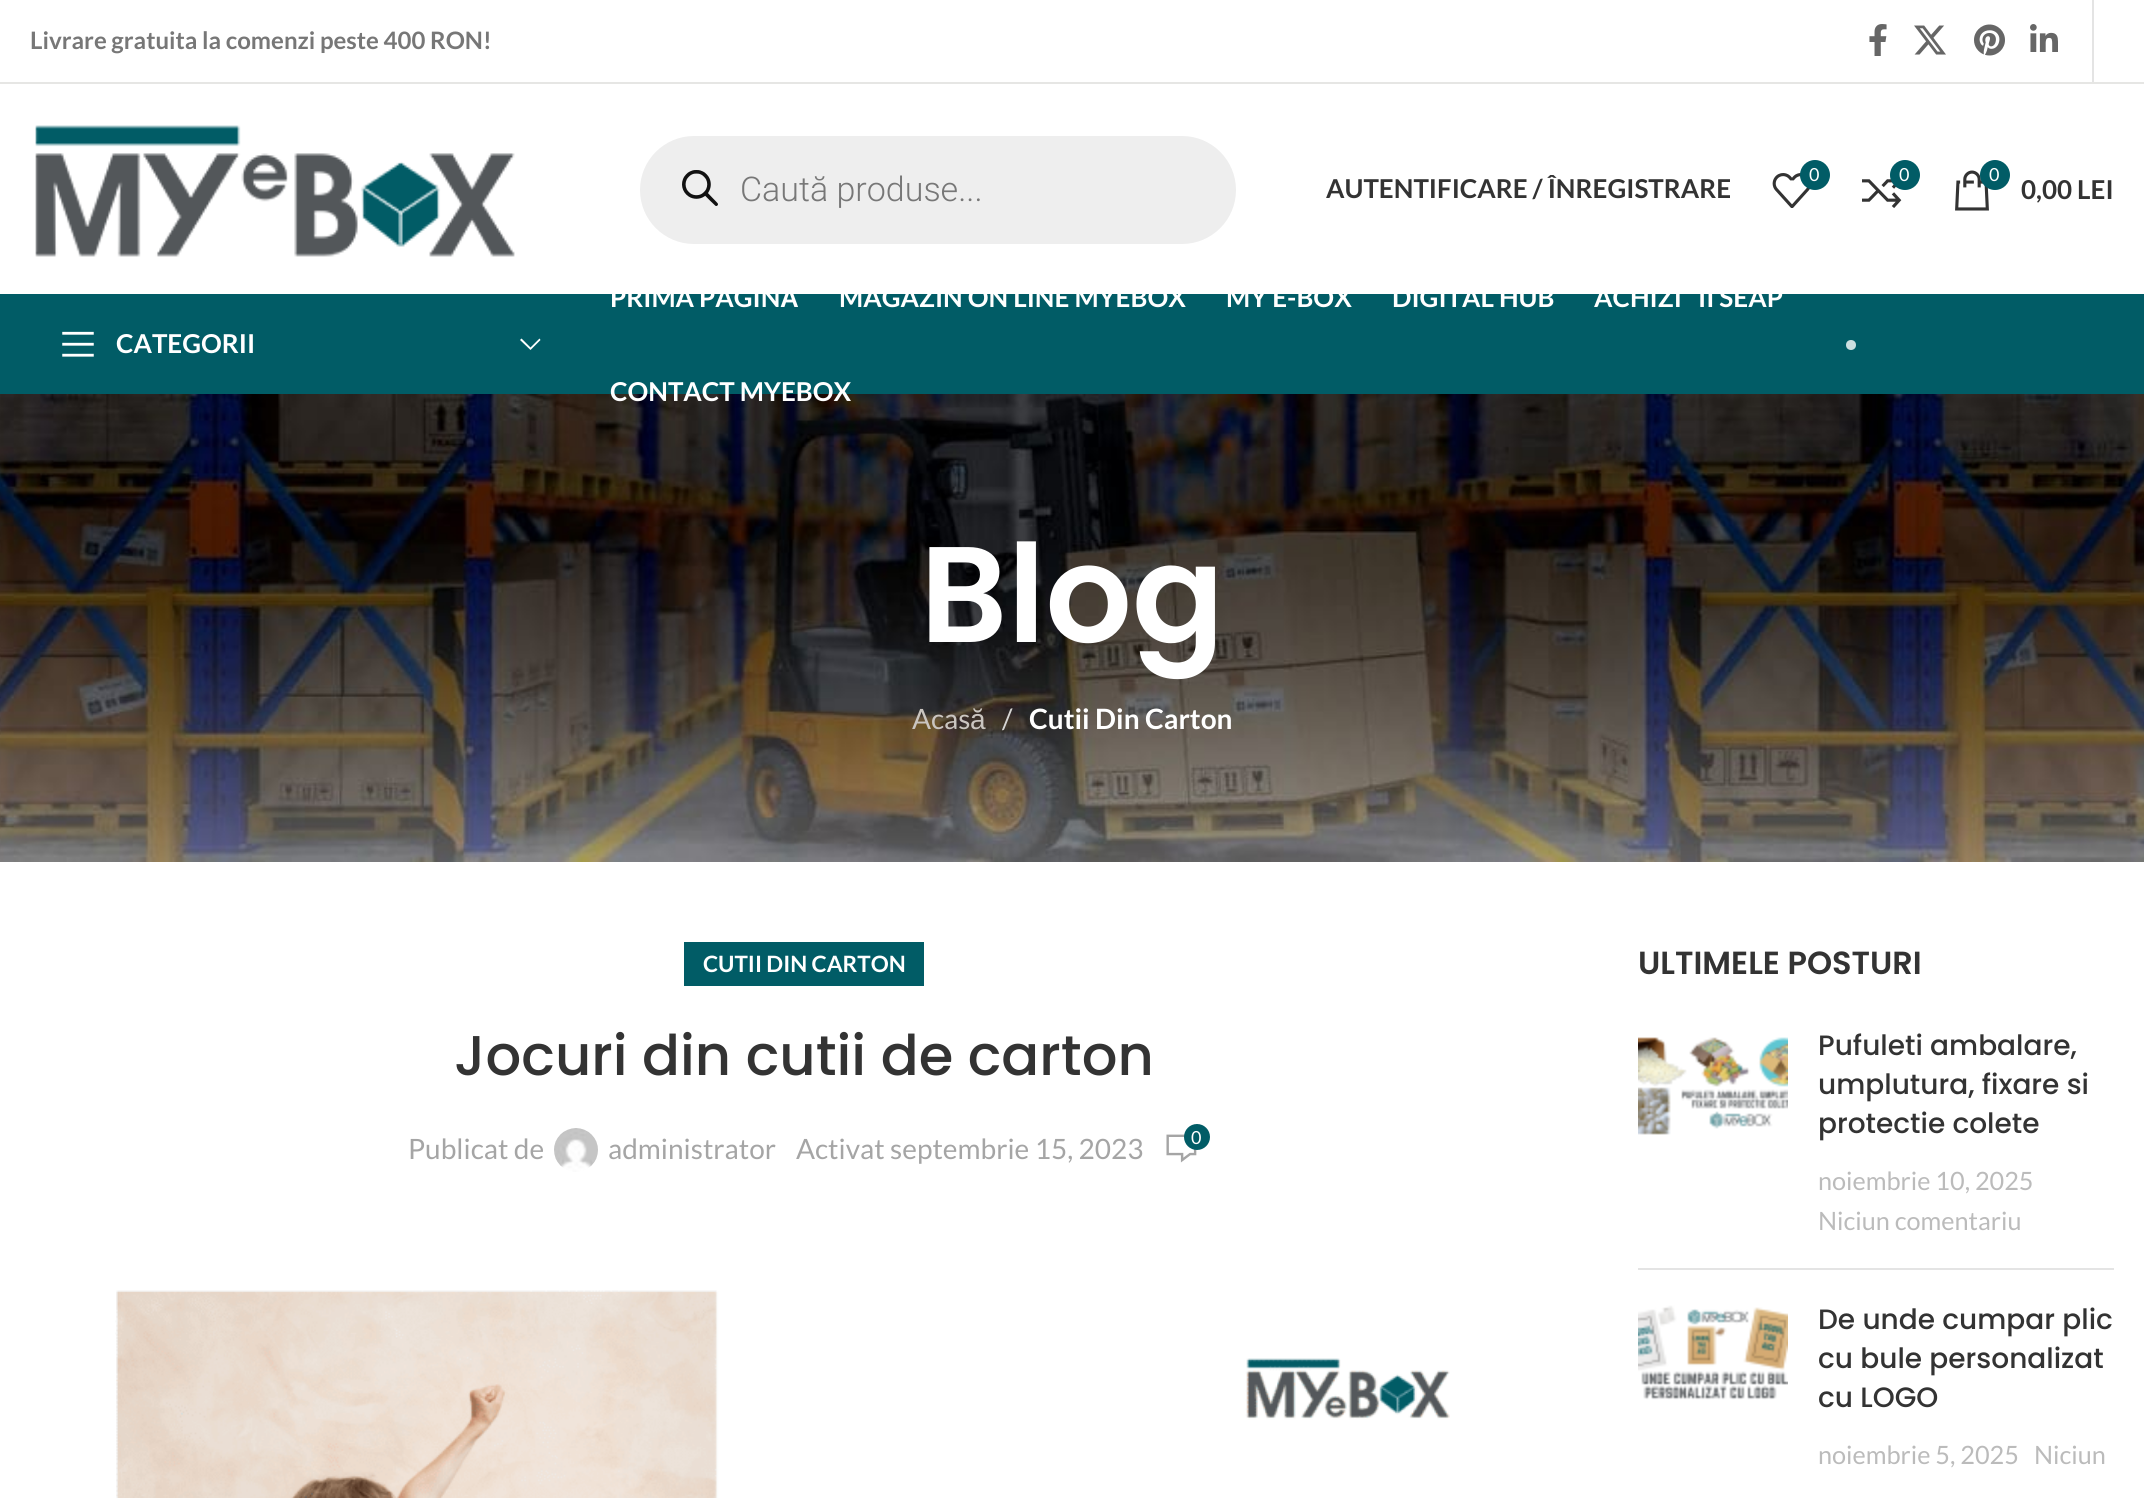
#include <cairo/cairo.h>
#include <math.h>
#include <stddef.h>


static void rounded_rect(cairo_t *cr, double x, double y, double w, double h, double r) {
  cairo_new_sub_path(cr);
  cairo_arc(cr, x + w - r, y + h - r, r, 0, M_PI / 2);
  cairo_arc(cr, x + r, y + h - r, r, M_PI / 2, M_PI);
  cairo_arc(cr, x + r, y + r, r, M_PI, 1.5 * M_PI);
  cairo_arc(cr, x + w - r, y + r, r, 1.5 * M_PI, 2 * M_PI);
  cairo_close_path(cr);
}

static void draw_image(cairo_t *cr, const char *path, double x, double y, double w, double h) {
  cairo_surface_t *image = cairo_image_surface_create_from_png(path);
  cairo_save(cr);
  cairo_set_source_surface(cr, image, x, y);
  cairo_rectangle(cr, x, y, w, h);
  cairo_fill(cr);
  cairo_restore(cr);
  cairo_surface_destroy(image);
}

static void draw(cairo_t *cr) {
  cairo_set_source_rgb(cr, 1, 1, 1);
  cairo_paint(cr);
  cairo_set_source_rgb(cr, 230 / 255.0, 230 / 255.0, 228 / 255.0);
  cairo_rectangle(cr, 0, 82, 2144, 2);
  cairo_fill(cr);
  draw_image(cr, "images/1.png", 1869, 24, 18, 32);
  draw_image(cr, "images/2.png", 1914, 25, 32, 30);
  draw_image(cr, "images/3.png", 1974, 24, 31, 32);
  draw_image(cr, "images/4.png", 2030, 24, 28, 28);
  cairo_set_source_rgb(cr, 228 / 255.0, 228 / 255.0, 228 / 255.0);
  cairo_rectangle(cr, 2092, 0, 2, 82);
  cairo_fill(cr);
  draw_image(cr, "images/5.png", 35, 125, 480, 132);
  cairo_set_source_rgb(cr, 238 / 255.0, 238 / 255.0, 238 / 255.0);
  rounded_rect(cr, 640, 136, 596, 108, 54);
  cairo_fill(cr);
  draw_image(cr, "images/6.png", 682, 170, 36, 36);
  draw_image(cr, "images/7.png", 1772, 173, 38, 35);
  cairo_set_source_rgb(cr, 1 / 255.0, 92 / 255.0, 102 / 255.0);
  cairo_arc(cr, 1815, 175, 15, 0, 2 * M_PI);
  cairo_fill(cr);
  draw_image(cr, "images/8.png", 1862, 179, 40, 29);
  cairo_arc(cr, 1905, 175, 15, 0, 2 * M_PI);
  cairo_fill(cr);
  draw_image(cr, "images/9.png", 1955, 170, 34, 41);
  cairo_arc(cr, 1995, 175, 15, 0, 2 * M_PI);
  cairo_fill(cr);
  cairo_rectangle(cr, 0, 294, 2144, 100);
  cairo_fill(cr);
  draw_image(cr, "images/10.png", 62, 331, 32, 26);
  cairo_set_source_rgb(cr, 1, 1, 1);
  cairo_new_path(cr);
  cairo_move_to(cr, 539.5, 338.5);
  cairo_line_to(cr, 530.5, 347.5);
  cairo_line_to(cr, 521.5, 338.5);
  cairo_line_to(cr, 520, 340);
  cairo_line_to(cr, 530.5, 350);
  cairo_line_to(cr, 540.5, 340);
  cairo_close_path(cr);
  cairo_fill(cr);
  cairo_set_source_rgb(cr, 204 / 255.0, 222 / 255.0, 224 / 255.0);
  cairo_arc(cr, 1851, 345, 5, 0, 2 * M_PI);
  cairo_fill(cr);
  draw_image(cr, "images/11.png", 0, 394, 2144, 468);
  cairo_set_source_rgb(cr, 1 / 255.0, 92 / 255.0, 102 / 255.0);
  cairo_rectangle(cr, 684, 942, 240, 44);
  cairo_fill(cr);
  draw_image(cr, "images/12.png", 554, 1128, 44, 44);
  draw_image(cr, "images/13.png", 1166, 1134, 31, 29);
  cairo_arc(cr, 1197, 1137, 13, 0, 2 * M_PI);
  cairo_fill(cr);
  draw_image(cr, "images/14.png", 115, 1290, 1335, 208);
  cairo_set_source_rgb(cr, 228 / 255.0, 228 / 255.0, 228 / 255.0);
  cairo_rectangle(cr, 1638, 1268, 476, 2);
  cairo_fill(cr);
  draw_image(cr, "images/15.png", 1638, 1037, 150, 98);
  draw_image(cr, "images/16.png", 1638, 1305, 150, 95);
  cairo_select_font_face(cr, "Lato", CAIRO_FONT_SLANT_NORMAL, CAIRO_FONT_WEIGHT_BOLD);
  cairo_set_font_size(cr, 24);
  cairo_set_source_rgb(cr, 119 / 255.0, 119 / 255.0, 119 / 255.0);
  cairo_move_to(cr, 30, 49);
  cairo_show_text(cr, "Livrare gratuita la comenzi peste 400 RON!");
  cairo_select_font_face(cr, "Roboto Light", CAIRO_FONT_SLANT_NORMAL, CAIRO_FONT_WEIGHT_NORMAL);
  cairo_set_font_size(cr, 34);
  cairo_move_to(cr, 740, 201);
  cairo_show_text(cr, "Caută produse...");
  cairo_select_font_face(cr, "Lato", CAIRO_FONT_SLANT_NORMAL, CAIRO_FONT_WEIGHT_BOLD);
  cairo_set_font_size(cr, 26);
  cairo_set_source_rgb(cr, 51 / 255.0, 51 / 255.0, 51 / 255.0);
  cairo_move_to(cr, 1326, 198);
  cairo_show_text(cr, "AUTENTIFICARE / ÎNREGISTRARE");
  cairo_select_font_face(cr, "Lato", CAIRO_FONT_SLANT_NORMAL, CAIRO_FONT_WEIGHT_NORMAL);
  cairo_set_font_size(cr, 18);
  cairo_set_source_rgb(cr, 1, 1, 1);
  cairo_move_to(cr, 1809, 181);
  cairo_show_text(cr, "0");
  cairo_move_to(cr, 1899, 181);
  cairo_show_text(cr, "0");
  cairo_move_to(cr, 1989, 181);
  cairo_show_text(cr, "0");
  cairo_select_font_face(cr, "Lato", CAIRO_FONT_SLANT_NORMAL, CAIRO_FONT_WEIGHT_BOLD);
  cairo_set_font_size(cr, 26);
  cairo_set_source_rgb(cr, 51 / 255.0, 51 / 255.0, 51 / 255.0);
  cairo_move_to(cr, 2021, 199);
  cairo_show_text(cr, "0,00 LEI");
  cairo_set_source_rgb(cr, 1, 1, 1);
  cairo_move_to(cr, 116, 353);
  cairo_show_text(cr, "CATEGORII");
  cairo_move_to(cr, 610, 307);
  cairo_show_text(cr, "PRIMA PAGIN");
  cairo_select_font_face(cr, "Liberation Sans", CAIRO_FONT_SLANT_NORMAL, CAIRO_FONT_WEIGHT_BOLD);
  cairo_move_to(cr, 780, 307);
  cairo_show_text(cr, "Ă");
  cairo_select_font_face(cr, "Lato", CAIRO_FONT_SLANT_NORMAL, CAIRO_FONT_WEIGHT_BOLD);
  cairo_move_to(cr, 839, 307);
  cairo_show_text(cr, "MAGAZIN ON LINE MYEBOX");
  cairo_move_to(cr, 1226, 307);
  cairo_show_text(cr, "MY E-BOX");
  cairo_move_to(cr, 1392, 307);
  cairo_show_text(cr, "DIGITAL HUB");
  cairo_move_to(cr, 1594, 307);
  cairo_show_text(cr, "ACHIZI");
  cairo_move_to(cr, 1698, 307);
  cairo_show_text(cr, "II SEAP");
  cairo_move_to(cr, 610, 401);
  cairo_show_text(cr, "CONTACT MYEBOX");
  cairo_select_font_face(cr, "Poppins SemiBold", CAIRO_FONT_SLANT_NORMAL, CAIRO_FONT_WEIGHT_NORMAL);
  cairo_set_font_size(cr, 136);
  cairo_move_to(cr, 920, 642);
  cairo_show_text(cr, "Blog");
  cairo_select_font_face(cr, "Lato", CAIRO_FONT_SLANT_NORMAL, CAIRO_FONT_WEIGHT_NORMAL);
  cairo_set_font_size(cr, 28);
  cairo_set_source_rgb(cr, 202 / 255.0, 197 / 255.0, 192 / 255.0);
  cairo_move_to(cr, 912, 729);
  cairo_show_text(cr, "Acas");
  cairo_select_font_face(cr, "Liberation Sans", CAIRO_FONT_SLANT_NORMAL, CAIRO_FONT_WEIGHT_NORMAL);
  cairo_move_to(cr, 970, 729);
  cairo_show_text(cr, "ă");
  cairo_select_font_face(cr, "Lato", CAIRO_FONT_SLANT_NORMAL, CAIRO_FONT_WEIGHT_NORMAL);
  cairo_set_source_rgb(cr, 215 / 255.0, 214 / 255.0, 212 / 255.0);
  cairo_move_to(cr, 1002, 729);
  cairo_show_text(cr, "/");
  cairo_select_font_face(cr, "Lato", CAIRO_FONT_SLANT_NORMAL, CAIRO_FONT_WEIGHT_BOLD);
  cairo_set_source_rgb(cr, 1, 1, 1);
  cairo_move_to(cr, 1029, 729);
  cairo_show_text(cr, "Cutii Din Carton");
  cairo_set_font_size(cr, 22.5);
  cairo_move_to(cr, 703, 972);
  cairo_show_text(cr, "CUTII DIN CARTON");
  cairo_select_font_face(cr, "Poppins Medium", CAIRO_FONT_SLANT_NORMAL, CAIRO_FONT_WEIGHT_NORMAL);
  cairo_set_font_size(cr, 56);
  cairo_set_source_rgb(cr, 51 / 255.0, 51 / 255.0, 51 / 255.0);
  cairo_move_to(cr, 454, 1075);
  cairo_show_text(cr, "Jocuri din cutii de carton");
  cairo_select_font_face(cr, "Lato", CAIRO_FONT_SLANT_NORMAL, CAIRO_FONT_WEIGHT_NORMAL);
  cairo_set_font_size(cr, 28);
  cairo_set_source_rgb(cr, 165 / 255.0, 165 / 255.0, 165 / 255.0);
  cairo_move_to(cr, 408, 1159);
  cairo_show_text(cr, "Publicat de");
  cairo_move_to(cr, 608, 1159);
  cairo_show_text(cr, "administrator");
  cairo_move_to(cr, 796, 1159);
  cairo_show_text(cr, "Activat septembrie 15, 2023");
  cairo_set_font_size(cr, 18);
  cairo_set_source_rgb(cr, 1, 1, 1);
  cairo_move_to(cr, 1191, 1144);
  cairo_show_text(cr, "0");
  cairo_select_font_face(cr, "Poppins SemiBold", CAIRO_FONT_SLANT_NORMAL, CAIRO_FONT_WEIGHT_NORMAL);
  cairo_set_font_size(cr, 32);
  cairo_set_source_rgb(cr, 51 / 255.0, 51 / 255.0, 51 / 255.0);
  cairo_move_to(cr, 1638, 974);
  cairo_show_text(cr, "ULTIMELE POSTURI");
  cairo_select_font_face(cr, "Poppins Medium", CAIRO_FONT_SLANT_NORMAL, CAIRO_FONT_WEIGHT_NORMAL);
  cairo_set_font_size(cr, 28);
  cairo_move_to(cr, 1818, 1055);
  cairo_show_text(cr, "Pufuleti ambalare,");
  cairo_move_to(cr, 1818, 1094);
  cairo_show_text(cr, "umplutura, fixare si");
  cairo_move_to(cr, 1818, 1133);
  cairo_show_text(cr, "protectie colete");
  cairo_select_font_face(cr, "Lato", CAIRO_FONT_SLANT_NORMAL, CAIRO_FONT_WEIGHT_NORMAL);
  cairo_set_font_size(cr, 25.25);
  cairo_set_source_rgb(cr, 187 / 255.0, 187 / 255.0, 187 / 255.0);
  cairo_move_to(cr, 1818, 1190);
  cairo_show_text(cr, "noiembrie 10, 2025");
  cairo_move_to(cr, 1818, 1230);
  cairo_show_text(cr, "Niciun comentariu");
  cairo_select_font_face(cr, "Poppins Medium", CAIRO_FONT_SLANT_NORMAL, CAIRO_FONT_WEIGHT_NORMAL);
  cairo_set_font_size(cr, 28);
  cairo_set_source_rgb(cr, 51 / 255.0, 51 / 255.0, 51 / 255.0);
  cairo_move_to(cr, 1818, 1329);
  cairo_show_text(cr, "De unde cumpar plic");
  cairo_move_to(cr, 1818, 1368);
  cairo_show_text(cr, "cu bule personalizat");
  cairo_move_to(cr, 1818, 1407);
  cairo_show_text(cr, "cu LOGO");
  cairo_select_font_face(cr, "Lato", CAIRO_FONT_SLANT_NORMAL, CAIRO_FONT_WEIGHT_NORMAL);
  cairo_set_font_size(cr, 25.25);
  cairo_set_source_rgb(cr, 187 / 255.0, 187 / 255.0, 187 / 255.0);
  cairo_move_to(cr, 1818, 1464);
  cairo_show_text(cr, "noiembrie 5, 2025");
  cairo_move_to(cr, 2034, 1464);
  cairo_show_text(cr, "Niciun");
}

int main(void) {
  cairo_surface_t *surface = cairo_image_surface_create(CAIRO_FORMAT_RGB24, 2144, 1498);
  cairo_t *cr = cairo_create(surface);
  cairo_font_options_t *options = cairo_font_options_create();
  cairo_font_options_set_hint_metrics(options, CAIRO_HINT_METRICS_OFF);
  cairo_font_options_set_hint_style(options, CAIRO_HINT_STYLE_NONE);
  cairo_set_font_options(cr, options);
  cairo_set_miter_limit(cr, 4);
  draw(cr);
  cairo_surface_write_to_png(surface, "out.png");
  cairo_font_options_destroy(options);
  cairo_destroy(cr);
  cairo_surface_destroy(surface);
  return 0;
}
